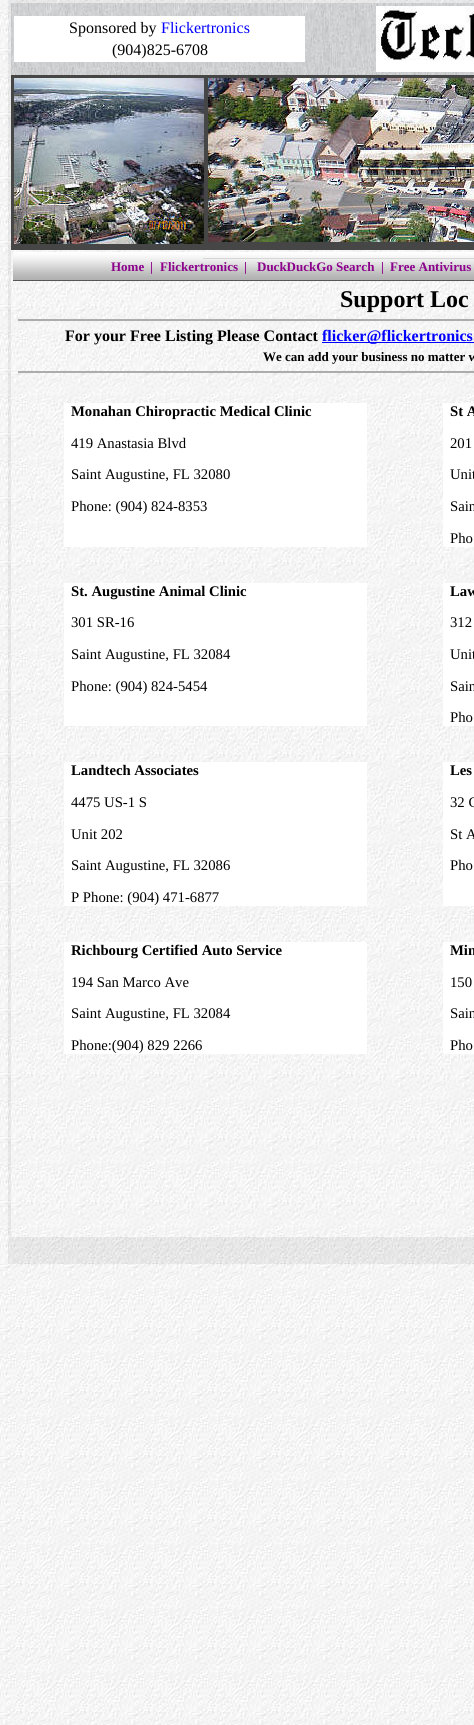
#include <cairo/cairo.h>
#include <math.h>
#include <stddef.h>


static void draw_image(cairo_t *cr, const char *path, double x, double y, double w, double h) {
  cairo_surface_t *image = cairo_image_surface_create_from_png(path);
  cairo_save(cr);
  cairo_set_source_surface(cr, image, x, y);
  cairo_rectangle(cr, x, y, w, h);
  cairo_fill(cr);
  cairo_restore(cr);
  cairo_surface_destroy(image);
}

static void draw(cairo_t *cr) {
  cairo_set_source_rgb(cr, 1, 1, 1);
  cairo_paint(cr);
  draw_image(cr, "images/1.png", 0, 0, 474, 1725);
  draw_image(cr, "images/2.png", 8, 0, 466, 1264);
  draw_image(cr, "images/3.png", 11, 250, 463, 987);
  draw_image(cr, "images/4.png", 11, 3, 463, 72);
  cairo_set_source_rgb(cr, 1, 1, 1);
  cairo_rectangle(cr, 14, 16, 291, 46);
  cairo_fill(cr);
  draw_image(cr, "images/5.png", 376, 6, 98, 66);
  cairo_set_source_rgb(cr, 70 / 255.0, 70 / 255.0, 70 / 255.0);
  cairo_rectangle(cr, 11, 75, 463, 175);
  cairo_fill(cr);
  draw_image(cr, "images/6.png", 14, 78, 190, 166);
  draw_image(cr, "images/7.png", 208, 78, 266, 164);
  draw_image(cr, "images/8.png", 13, 252, 461, 29);
  cairo_set_source_rgb(cr, 215 / 255.0, 215 / 255.0, 215 / 255.0);
  cairo_rectangle(cr, 203, 258, 271, 1);
  cairo_fill(cr);
  cairo_set_source_rgb(cr, 172 / 255.0, 172 / 255.0, 172 / 255.0);
  cairo_rectangle(cr, 18, 319, 456, 2);
  cairo_fill(cr);
  cairo_set_source_rgb(cr, 0, 0, 1);
  cairo_rectangle(cr, 322, 342, 152, 1);
  cairo_fill(cr);
  cairo_set_source_rgb(cr, 172 / 255.0, 172 / 255.0, 172 / 255.0);
  cairo_rectangle(cr, 18, 371, 456, 2);
  cairo_fill(cr);
  cairo_set_source_rgb(cr, 1, 1, 1);
  cairo_rectangle(cr, 64, 403, 303, 144);
  cairo_fill(cr);
  cairo_rectangle(cr, 443, 403, 31, 144);
  cairo_fill(cr);
  cairo_rectangle(cr, 64, 583, 303, 143);
  cairo_fill(cr);
  cairo_rectangle(cr, 443, 583, 31, 143);
  cairo_fill(cr);
  cairo_rectangle(cr, 64, 762, 303, 144);
  cairo_fill(cr);
  cairo_rectangle(cr, 443, 762, 31, 144);
  cairo_fill(cr);
  cairo_rectangle(cr, 64, 942, 303, 112);
  cairo_fill(cr);
  cairo_rectangle(cr, 443, 942, 31, 112);
  cairo_fill(cr);
  cairo_select_font_face(cr, "Liberation Serif", CAIRO_FONT_SLANT_NORMAL, CAIRO_FONT_WEIGHT_NORMAL);
  cairo_set_font_size(cr, 16);
  cairo_set_source_rgb(cr, 0, 0, 0);
  cairo_move_to(cr, 69, 33);
  cairo_show_text(cr, "Sponsored by");
  cairo_set_source_rgb(cr, 0, 0, 1);
  cairo_move_to(cr, 161, 33);
  cairo_show_text(cr, "Flickertronics");
  cairo_set_source_rgb(cr, 0, 0, 0);
  cairo_move_to(cr, 112, 55);
  cairo_show_text(cr, "(904)825-6708");
  cairo_select_font_face(cr, "Liberation Serif", CAIRO_FONT_SLANT_NORMAL, CAIRO_FONT_WEIGHT_BOLD);
  cairo_set_font_size(cr, 13);
  cairo_set_source_rgb(cr, 140 / 255.0, 0, 140 / 255.0);
  cairo_move_to(cr, 111, 271);
  cairo_show_text(cr, "Home");
  cairo_move_to(cr, 150, 271);
  cairo_show_text(cr, "|");
  cairo_move_to(cr, 160, 271);
  cairo_show_text(cr, "Flickertronics");
  cairo_move_to(cr, 244, 271);
  cairo_show_text(cr, "|");
  cairo_move_to(cr, 257, 271);
  cairo_show_text(cr, "DuckDuckGo Search");
  cairo_move_to(cr, 381, 271);
  cairo_show_text(cr, "|");
  cairo_move_to(cr, 390, 271);
  cairo_show_text(cr, "Free Antivirus");
  cairo_set_font_size(cr, 24);
  cairo_set_source_rgb(cr, 0, 0, 0);
  cairo_move_to(cr, 340, 307);
  cairo_show_text(cr, "Support Loc");
  cairo_set_font_size(cr, 16);
  cairo_move_to(cr, 65, 341);
  cairo_show_text(cr, "For your Free Listing Please Contact");
  cairo_set_source_rgb(cr, 0, 0, 1);
  cairo_move_to(cr, 322, 341);
  cairo_show_text(cr, "flicker@flickertronics");
  cairo_set_font_size(cr, 13);
  cairo_set_source_rgb(cr, 0, 0, 0);
  cairo_move_to(cr, 263, 361);
  cairo_show_text(cr, "We can add your business no matter w");
  cairo_set_font_size(cr, 14.7);
  cairo_move_to(cr, 71, 416);
  cairo_show_text(cr, "Monahan Chiropractic Medical Clinic");
  cairo_select_font_face(cr, "Liberation Serif", CAIRO_FONT_SLANT_NORMAL, CAIRO_FONT_WEIGHT_NORMAL);
  cairo_move_to(cr, 71, 448);
  cairo_show_text(cr, "419 Anastasia Blvd");
  cairo_move_to(cr, 71, 479);
  cairo_show_text(cr, "Saint Augustine, FL 32080");
  cairo_move_to(cr, 71, 511);
  cairo_show_text(cr, "Phone: (904) 824-8353");
  cairo_select_font_face(cr, "Liberation Serif", CAIRO_FONT_SLANT_NORMAL, CAIRO_FONT_WEIGHT_BOLD);
  cairo_move_to(cr, 450, 416);
  cairo_show_text(cr, "St A");
  cairo_select_font_face(cr, "Liberation Serif", CAIRO_FONT_SLANT_NORMAL, CAIRO_FONT_WEIGHT_NORMAL);
  cairo_move_to(cr, 450, 448);
  cairo_show_text(cr, "201");
  cairo_move_to(cr, 450, 479);
  cairo_show_text(cr, "Unit");
  cairo_move_to(cr, 450, 511);
  cairo_show_text(cr, "Sain");
  cairo_move_to(cr, 450, 543);
  cairo_show_text(cr, "Pho");
  cairo_select_font_face(cr, "Liberation Serif", CAIRO_FONT_SLANT_NORMAL, CAIRO_FONT_WEIGHT_BOLD);
  cairo_move_to(cr, 71, 596);
  cairo_show_text(cr, "St. Augustine Animal Clinic");
  cairo_select_font_face(cr, "Liberation Serif", CAIRO_FONT_SLANT_NORMAL, CAIRO_FONT_WEIGHT_NORMAL);
  cairo_move_to(cr, 71, 627);
  cairo_show_text(cr, "301 SR-16");
  cairo_move_to(cr, 71, 659);
  cairo_show_text(cr, "Saint Augustine, FL 32084");
  cairo_move_to(cr, 71, 691);
  cairo_show_text(cr, "Phone: (904) 824-5454");
  cairo_select_font_face(cr, "Liberation Serif", CAIRO_FONT_SLANT_NORMAL, CAIRO_FONT_WEIGHT_BOLD);
  cairo_move_to(cr, 450, 596);
  cairo_show_text(cr, "Law");
  cairo_select_font_face(cr, "Liberation Serif", CAIRO_FONT_SLANT_NORMAL, CAIRO_FONT_WEIGHT_NORMAL);
  cairo_move_to(cr, 450, 627);
  cairo_show_text(cr, "312");
  cairo_move_to(cr, 450, 659);
  cairo_show_text(cr, "Unit");
  cairo_move_to(cr, 450, 691);
  cairo_show_text(cr, "Sain");
  cairo_move_to(cr, 450, 722);
  cairo_show_text(cr, "Pho");
  cairo_select_font_face(cr, "Liberation Serif", CAIRO_FONT_SLANT_NORMAL, CAIRO_FONT_WEIGHT_BOLD);
  cairo_move_to(cr, 71, 775);
  cairo_show_text(cr, "Landtech Associates");
  cairo_select_font_face(cr, "Liberation Serif", CAIRO_FONT_SLANT_NORMAL, CAIRO_FONT_WEIGHT_NORMAL);
  cairo_move_to(cr, 71, 807);
  cairo_show_text(cr, "4475 US-1 S");
  cairo_move_to(cr, 71, 839);
  cairo_show_text(cr, "Unit 202");
  cairo_move_to(cr, 71, 870);
  cairo_show_text(cr, "Saint Augustine, FL 32086");
  cairo_move_to(cr, 71, 902);
  cairo_show_text(cr, "P Phone: (904) 471-6877");
  cairo_select_font_face(cr, "Liberation Serif", CAIRO_FONT_SLANT_NORMAL, CAIRO_FONT_WEIGHT_BOLD);
  cairo_move_to(cr, 450, 775);
  cairo_show_text(cr, "Les");
  cairo_select_font_face(cr, "Liberation Serif", CAIRO_FONT_SLANT_NORMAL, CAIRO_FONT_WEIGHT_NORMAL);
  cairo_move_to(cr, 450, 807);
  cairo_show_text(cr, "32 C");
  cairo_move_to(cr, 450, 839);
  cairo_show_text(cr, "St A");
  cairo_move_to(cr, 450, 870);
  cairo_show_text(cr, "Pho");
  cairo_select_font_face(cr, "Liberation Serif", CAIRO_FONT_SLANT_NORMAL, CAIRO_FONT_WEIGHT_BOLD);
  cairo_move_to(cr, 71, 955);
  cairo_show_text(cr, "Richbourg Certified Auto Service");
  cairo_select_font_face(cr, "Liberation Serif", CAIRO_FONT_SLANT_NORMAL, CAIRO_FONT_WEIGHT_NORMAL);
  cairo_move_to(cr, 71, 987);
  cairo_show_text(cr, "194 San Marco Ave");
  cairo_move_to(cr, 71, 1018);
  cairo_show_text(cr, "Saint Augustine, FL 32084");
  cairo_move_to(cr, 71, 1050);
  cairo_show_text(cr, "Phone:(904) 829 2266");
  cairo_select_font_face(cr, "Liberation Serif", CAIRO_FONT_SLANT_NORMAL, CAIRO_FONT_WEIGHT_BOLD);
  cairo_move_to(cr, 450, 955);
  cairo_show_text(cr, "Min");
  cairo_select_font_face(cr, "Liberation Serif", CAIRO_FONT_SLANT_NORMAL, CAIRO_FONT_WEIGHT_NORMAL);
  cairo_move_to(cr, 450, 987);
  cairo_show_text(cr, "150");
  cairo_move_to(cr, 450, 1018);
  cairo_show_text(cr, "Sain");
  cairo_move_to(cr, 450, 1050);
  cairo_show_text(cr, "Pho");
}

int main(void) {
  cairo_surface_t *surface = cairo_image_surface_create(CAIRO_FORMAT_RGB24, 474, 1725);
  cairo_t *cr = cairo_create(surface);
  cairo_font_options_t *options = cairo_font_options_create();
  cairo_font_options_set_hint_metrics(options, CAIRO_HINT_METRICS_OFF);
  cairo_font_options_set_hint_style(options, CAIRO_HINT_STYLE_NONE);
  cairo_set_font_options(cr, options);
  cairo_set_miter_limit(cr, 4);
  draw(cr);
  cairo_surface_write_to_png(surface, "out.png");
  cairo_font_options_destroy(options);
  cairo_destroy(cr);
  cairo_surface_destroy(surface);
  return 0;
}
